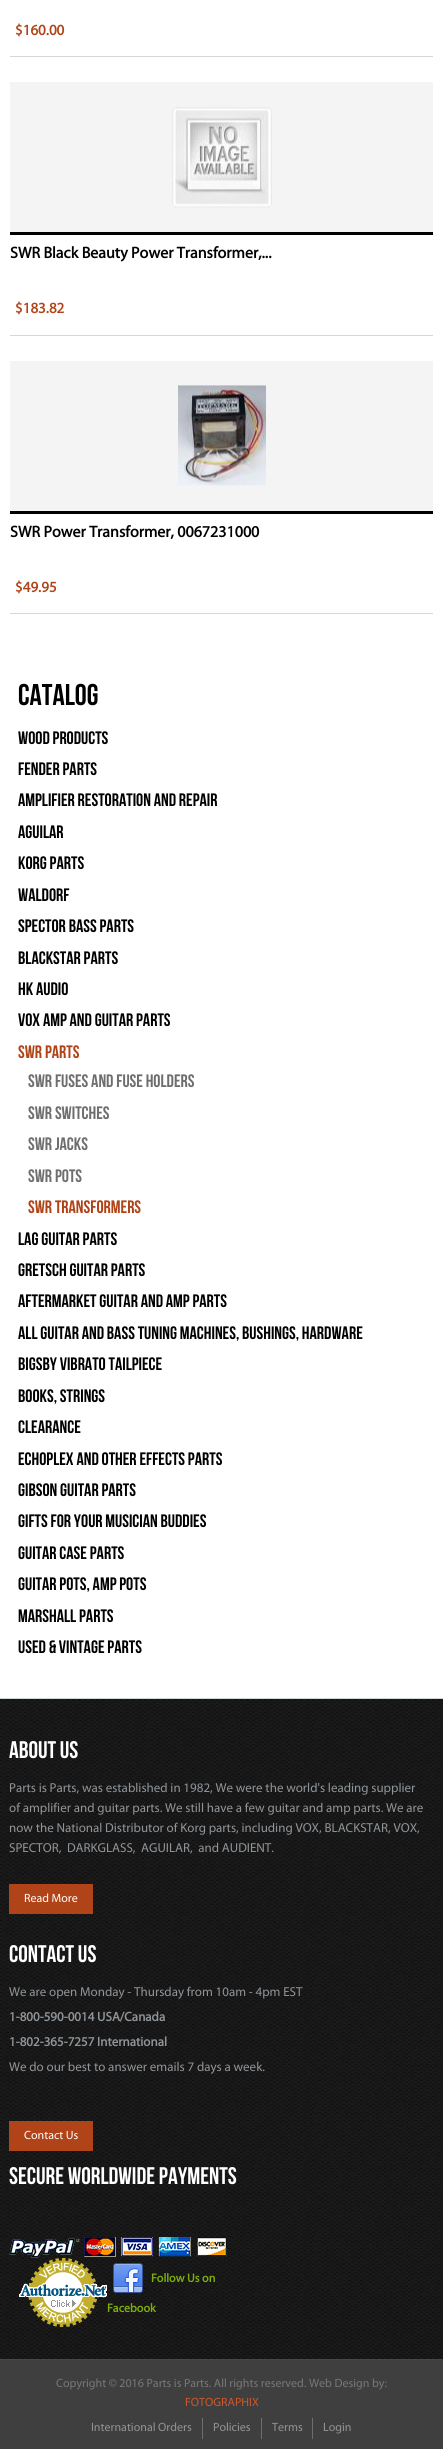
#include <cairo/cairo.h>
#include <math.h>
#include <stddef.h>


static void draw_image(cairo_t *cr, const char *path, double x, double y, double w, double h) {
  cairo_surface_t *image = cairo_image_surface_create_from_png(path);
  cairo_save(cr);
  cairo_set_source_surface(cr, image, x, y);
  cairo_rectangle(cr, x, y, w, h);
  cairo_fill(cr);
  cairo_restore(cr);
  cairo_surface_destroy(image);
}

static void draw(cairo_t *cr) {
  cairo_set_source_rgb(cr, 1, 1, 1);
  cairo_paint(cr);
  cairo_set_source_rgb(cr, 215 / 255.0, 215 / 255.0, 215 / 255.0);
  cairo_rectangle(cr, 10, 56, 423, 1);
  cairo_fill(cr);
  cairo_rectangle(cr, 10, 335, 423, 1);
  cairo_fill(cr);
  cairo_set_source_rgb(cr, 244 / 255.0, 244 / 255.0, 244 / 255.0);
  cairo_rectangle(cr, 10, 82, 423, 150);
  cairo_fill(cr);
  cairo_set_source_rgb(cr, 0, 0, 0);
  cairo_rectangle(cr, 10, 232, 423, 3);
  cairo_fill(cr);
  draw_image(cr, "images/1.png", 172, 107, 100, 101);
  cairo_set_source_rgb(cr, 215 / 255.0, 215 / 255.0, 215 / 255.0);
  cairo_rectangle(cr, 10, 613, 423, 1);
  cairo_fill(cr);
  cairo_set_source_rgb(cr, 244 / 255.0, 244 / 255.0, 244 / 255.0);
  cairo_rectangle(cr, 10, 361, 423, 150);
  cairo_fill(cr);
  cairo_set_source_rgb(cr, 0, 0, 0);
  cairo_rectangle(cr, 10, 511, 423, 3);
  cairo_fill(cr);
  draw_image(cr, "images/2.png", 178, 385, 88, 101);
  draw_image(cr, "images/3.png", 0, 1699, 443, 660);
  cairo_set_source_rgb(cr, 207 / 255.0, 215 / 255.0, 219 / 255.0);
  cairo_rectangle(cr, 0, 1698, 443, 1);
  cairo_fill(cr);
  cairo_set_source_rgb(cr, 176 / 255.0, 67 / 255.0, 23 / 255.0);
  cairo_rectangle(cr, 9, 1884, 84, 30);
  cairo_fill(cr);
  cairo_rectangle(cr, 9, 2121, 84, 30);
  cairo_fill(cr);
  draw_image(cr, "images/4.png", 9, 2237, 218, 21);
  draw_image(cr, "images/5.png", 19, 2258, 88, 69);
  draw_image(cr, "images/6.png", 113, 2263, 30, 30);
  cairo_set_source_rgb(cr, 63 / 255.0, 63 / 255.0, 63 / 255.0);
  cairo_rectangle(cr, 0, 2360, 443, 89);
  cairo_fill(cr);
  cairo_set_source_rgb(cr, 72 / 255.0, 72 / 255.0, 72 / 255.0);
  cairo_rectangle(cr, 0, 2359, 443, 1);
  cairo_fill(cr);
  cairo_set_source_rgb(cr, 110 / 255.0, 110 / 255.0, 110 / 255.0);
  cairo_rectangle(cr, 202, 2418, 1, 21);
  cairo_fill(cr);
  cairo_rectangle(cr, 261, 2418, 1, 21);
  cairo_fill(cr);
  cairo_rectangle(cr, 312, 2418, 1, 21);
  cairo_fill(cr);
  cairo_select_font_face(cr, "Myriad", CAIRO_FONT_SLANT_NORMAL, CAIRO_FONT_WEIGHT_BOLD);
  cairo_set_font_size(cr, 15);
  cairo_set_source_rgb(cr, 176 / 255.0, 67 / 255.0, 23 / 255.0);
  cairo_move_to(cr, 15, 35);
  cairo_show_text(cr, "$160.00");
  cairo_set_font_size(cr, 16);
  cairo_set_source_rgb(cr, 0, 0, 0);
  cairo_move_to(cr, 10, 258);
  cairo_show_text(cr, "SWR Black Beauty Power Transformer,...");
  cairo_set_font_size(cr, 15);
  cairo_set_source_rgb(cr, 176 / 255.0, 67 / 255.0, 23 / 255.0);
  cairo_move_to(cr, 15, 313);
  cairo_show_text(cr, "$183.82");
  cairo_set_font_size(cr, 16);
  cairo_set_source_rgb(cr, 0, 0, 0);
  cairo_move_to(cr, 10, 537);
  cairo_show_text(cr, "SWR Power Transformer, 0067231000");
  cairo_set_font_size(cr, 15);
  cairo_set_source_rgb(cr, 176 / 255.0, 67 / 255.0, 23 / 255.0);
  cairo_move_to(cr, 15, 592);
  cairo_show_text(cr, "$49.95");
  cairo_select_font_face(cr, "Bebas Neue", CAIRO_FONT_SLANT_NORMAL, CAIRO_FONT_WEIGHT_BOLD);
  cairo_set_font_size(cr, 30);
  cairo_set_source_rgb(cr, 0, 0, 0);
  cairo_move_to(cr, 18, 705);
  cairo_show_text(cr, "Catalog");
  cairo_set_font_size(cr, 18);
  cairo_move_to(cr, 18, 744);
  cairo_show_text(cr, "Wood Products");
  cairo_move_to(cr, 18, 775);
  cairo_show_text(cr, "Fender Parts");
  cairo_move_to(cr, 18, 806);
  cairo_show_text(cr, "Amplifier Restoration and Repair");
  cairo_move_to(cr, 18, 838);
  cairo_show_text(cr, "Aguilar");
  cairo_move_to(cr, 18, 869);
  cairo_show_text(cr, "Korg Parts");
  cairo_move_to(cr, 18, 901);
  cairo_show_text(cr, "WALDORF");
  cairo_move_to(cr, 18, 932);
  cairo_show_text(cr, "Spector Bass Parts");
  cairo_move_to(cr, 18, 964);
  cairo_show_text(cr, "Blackstar Parts");
  cairo_move_to(cr, 18, 995);
  cairo_show_text(cr, "HK Audio");
  cairo_move_to(cr, 18, 1026);
  cairo_show_text(cr, "Vox Amp and Guitar Parts");
  cairo_set_source_rgb(cr, 176 / 255.0, 67 / 255.0, 23 / 255.0);
  cairo_move_to(cr, 18, 1058);
  cairo_show_text(cr, "SWR Parts");
  cairo_set_source_rgb(cr, 110 / 255.0, 110 / 255.0, 110 / 255.0);
  cairo_move_to(cr, 28, 1087);
  cairo_show_text(cr, "SWR Fuses And Fuse Holders");
  cairo_move_to(cr, 28, 1119);
  cairo_show_text(cr, "SWR Switches");
  cairo_move_to(cr, 28, 1150);
  cairo_show_text(cr, "SWR Jacks");
  cairo_move_to(cr, 28, 1182);
  cairo_show_text(cr, "SWR Pots");
  cairo_set_source_rgb(cr, 176 / 255.0, 67 / 255.0, 23 / 255.0);
  cairo_move_to(cr, 28, 1213);
  cairo_show_text(cr, "SWR Transformers");
  cairo_set_source_rgb(cr, 0, 0, 0);
  cairo_move_to(cr, 18, 1245);
  cairo_show_text(cr, "Lag Guitar Parts");
  cairo_move_to(cr, 18, 1276);
  cairo_show_text(cr, "Gretsch Guitar Parts");
  cairo_move_to(cr, 18, 1307);
  cairo_show_text(cr, "Aftermarket Guitar and Amp Parts");
  cairo_move_to(cr, 18, 1339);
  cairo_show_text(cr, "All Guitar and Bass Tuning Machines, Bushings, Hardware");
  cairo_move_to(cr, 18, 1370);
  cairo_show_text(cr, "Bigsby Vibrato Tailpiece");
  cairo_move_to(cr, 18, 1402);
  cairo_show_text(cr, "Books, Strings");
  cairo_move_to(cr, 18, 1433);
  cairo_show_text(cr, "Clearance");
  cairo_move_to(cr, 18, 1465);
  cairo_show_text(cr, "Echoplex and Other Effects Parts");
  cairo_move_to(cr, 18, 1496);
  cairo_show_text(cr, "Gibson Guitar Parts");
  cairo_move_to(cr, 18, 1527);
  cairo_show_text(cr, "Gifts For Your Musician Buddies");
  cairo_move_to(cr, 18, 1559);
  cairo_show_text(cr, "Guitar Case Parts");
  cairo_move_to(cr, 18, 1590);
  cairo_show_text(cr, "Guitar Pots, Amp Pots");
  cairo_move_to(cr, 18, 1622);
  cairo_show_text(cr, "Marshall Parts");
  cairo_move_to(cr, 18, 1653);
  cairo_show_text(cr, "Used & Vintage Parts");
  cairo_set_font_size(cr, 24);
  cairo_set_source_rgb(cr, 1, 1, 1);
  cairo_move_to(cr, 9, 1758);
  cairo_show_text(cr, "ABOUT US");
  cairo_select_font_face(cr, "Myriad", CAIRO_FONT_SLANT_NORMAL, CAIRO_FONT_WEIGHT_NORMAL);
  cairo_set_font_size(cr, 13);
  cairo_set_source_rgb(cr, 144 / 255.0, 149 / 255.0, 153 / 255.0);
  cairo_move_to(cr, 9, 1792);
  cairo_show_text(cr, "Parts is Parts, was established in 1982, We were the world's leading supplier");
  cairo_move_to(cr, 9, 1812);
  cairo_show_text(cr, "of amplifier and guitar parts. We still have a few guitar and amp parts. We are");
  cairo_move_to(cr, 9, 1832);
  cairo_show_text(cr, "now the National Distributor of Korg parts, including VOX, BLACKSTAR, VOX,");
  cairo_move_to(cr, 9, 1852);
  cairo_show_text(cr, "SPECTOR,  DARKGLASS,  AGUILAR,  and AUDIENT.");
  cairo_set_font_size(cr, 12);
  cairo_set_source_rgb(cr, 1, 1, 1);
  cairo_move_to(cr, 24, 1902);
  cairo_show_text(cr, "Read More");
  cairo_select_font_face(cr, "Bebas Neue", CAIRO_FONT_SLANT_NORMAL, CAIRO_FONT_WEIGHT_BOLD);
  cairo_set_font_size(cr, 24);
  cairo_move_to(cr, 9, 1962);
  cairo_show_text(cr, "CONTACT US");
  cairo_select_font_face(cr, "Myriad", CAIRO_FONT_SLANT_NORMAL, CAIRO_FONT_WEIGHT_NORMAL);
  cairo_set_font_size(cr, 13);
  cairo_set_source_rgb(cr, 144 / 255.0, 149 / 255.0, 153 / 255.0);
  cairo_move_to(cr, 9, 1996);
  cairo_show_text(cr, "We are open Monday - Thursday from 10am - 4pm EST");
  cairo_select_font_face(cr, "Myriad", CAIRO_FONT_SLANT_NORMAL, CAIRO_FONT_WEIGHT_BOLD);
  cairo_move_to(cr, 9, 2021);
  cairo_show_text(cr, "1-800-590-0014 USA/Canada");
  cairo_move_to(cr, 9, 2046);
  cairo_show_text(cr, "1-802-365-7257 International");
  cairo_select_font_face(cr, "Myriad", CAIRO_FONT_SLANT_NORMAL, CAIRO_FONT_WEIGHT_NORMAL);
  cairo_move_to(cr, 9, 2071);
  cairo_show_text(cr, "We do our best to answer emails 7 days a week.");
  cairo_set_font_size(cr, 12);
  cairo_set_source_rgb(cr, 1, 1, 1);
  cairo_move_to(cr, 24, 2139);
  cairo_show_text(cr, "Contact Us");
  cairo_select_font_face(cr, "Bebas Neue", CAIRO_FONT_SLANT_NORMAL, CAIRO_FONT_WEIGHT_BOLD);
  cairo_set_font_size(cr, 24);
  cairo_move_to(cr, 9, 2184);
  cairo_show_text(cr, "SECURE WORLDWIDE PAYMENTS");
  cairo_select_font_face(cr, "Myriad", CAIRO_FONT_SLANT_NORMAL, CAIRO_FONT_WEIGHT_BOLD);
  cairo_set_font_size(cr, 12);
  cairo_set_source_rgb(cr, 127 / 255.0, 176 / 255.0, 8 / 255.0);
  cairo_move_to(cr, 151, 2282);
  cairo_show_text(cr, "Follow Us on");
  cairo_move_to(cr, 107, 2312);
  cairo_show_text(cr, "Facebook");
  cairo_select_font_face(cr, "Myriad", CAIRO_FONT_SLANT_NORMAL, CAIRO_FONT_WEIGHT_NORMAL);
  cairo_set_source_rgb(cr, 119 / 255.0, 119 / 255.0, 119 / 255.0);
  cairo_move_to(cr, 56, 2387);
  cairo_show_text(cr, "Copyright © 2016 Parts is Parts. All rights reserved. Web Design by:");
  cairo_set_source_rgb(cr, 206 / 255.0, 88 / 255.0, 40 / 255.0);
  cairo_move_to(cr, 185, 2406);
  cairo_show_text(cr, "FOTOGRAPHIX");
  cairo_set_source_rgb(cr, 147 / 255.0, 147 / 255.0, 147 / 255.0);
  cairo_move_to(cr, 91, 2431);
  cairo_show_text(cr, "International Orders");
  cairo_move_to(cr, 213, 2431);
  cairo_show_text(cr, "Policies");
  cairo_move_to(cr, 272, 2431);
  cairo_show_text(cr, "Terms");
  cairo_move_to(cr, 323, 2431);
  cairo_show_text(cr, "Login");
}

int main(void) {
  cairo_surface_t *surface = cairo_image_surface_create(CAIRO_FORMAT_RGB24, 443, 2449);
  cairo_t *cr = cairo_create(surface);
  cairo_font_options_t *options = cairo_font_options_create();
  cairo_font_options_set_hint_metrics(options, CAIRO_HINT_METRICS_OFF);
  cairo_font_options_set_hint_style(options, CAIRO_HINT_STYLE_NONE);
  cairo_set_font_options(cr, options);
  cairo_set_miter_limit(cr, 4);
  draw(cr);
  cairo_surface_write_to_png(surface, "out.png");
  cairo_font_options_destroy(options);
  cairo_destroy(cr);
  cairo_surface_destroy(surface);
  return 0;
}
